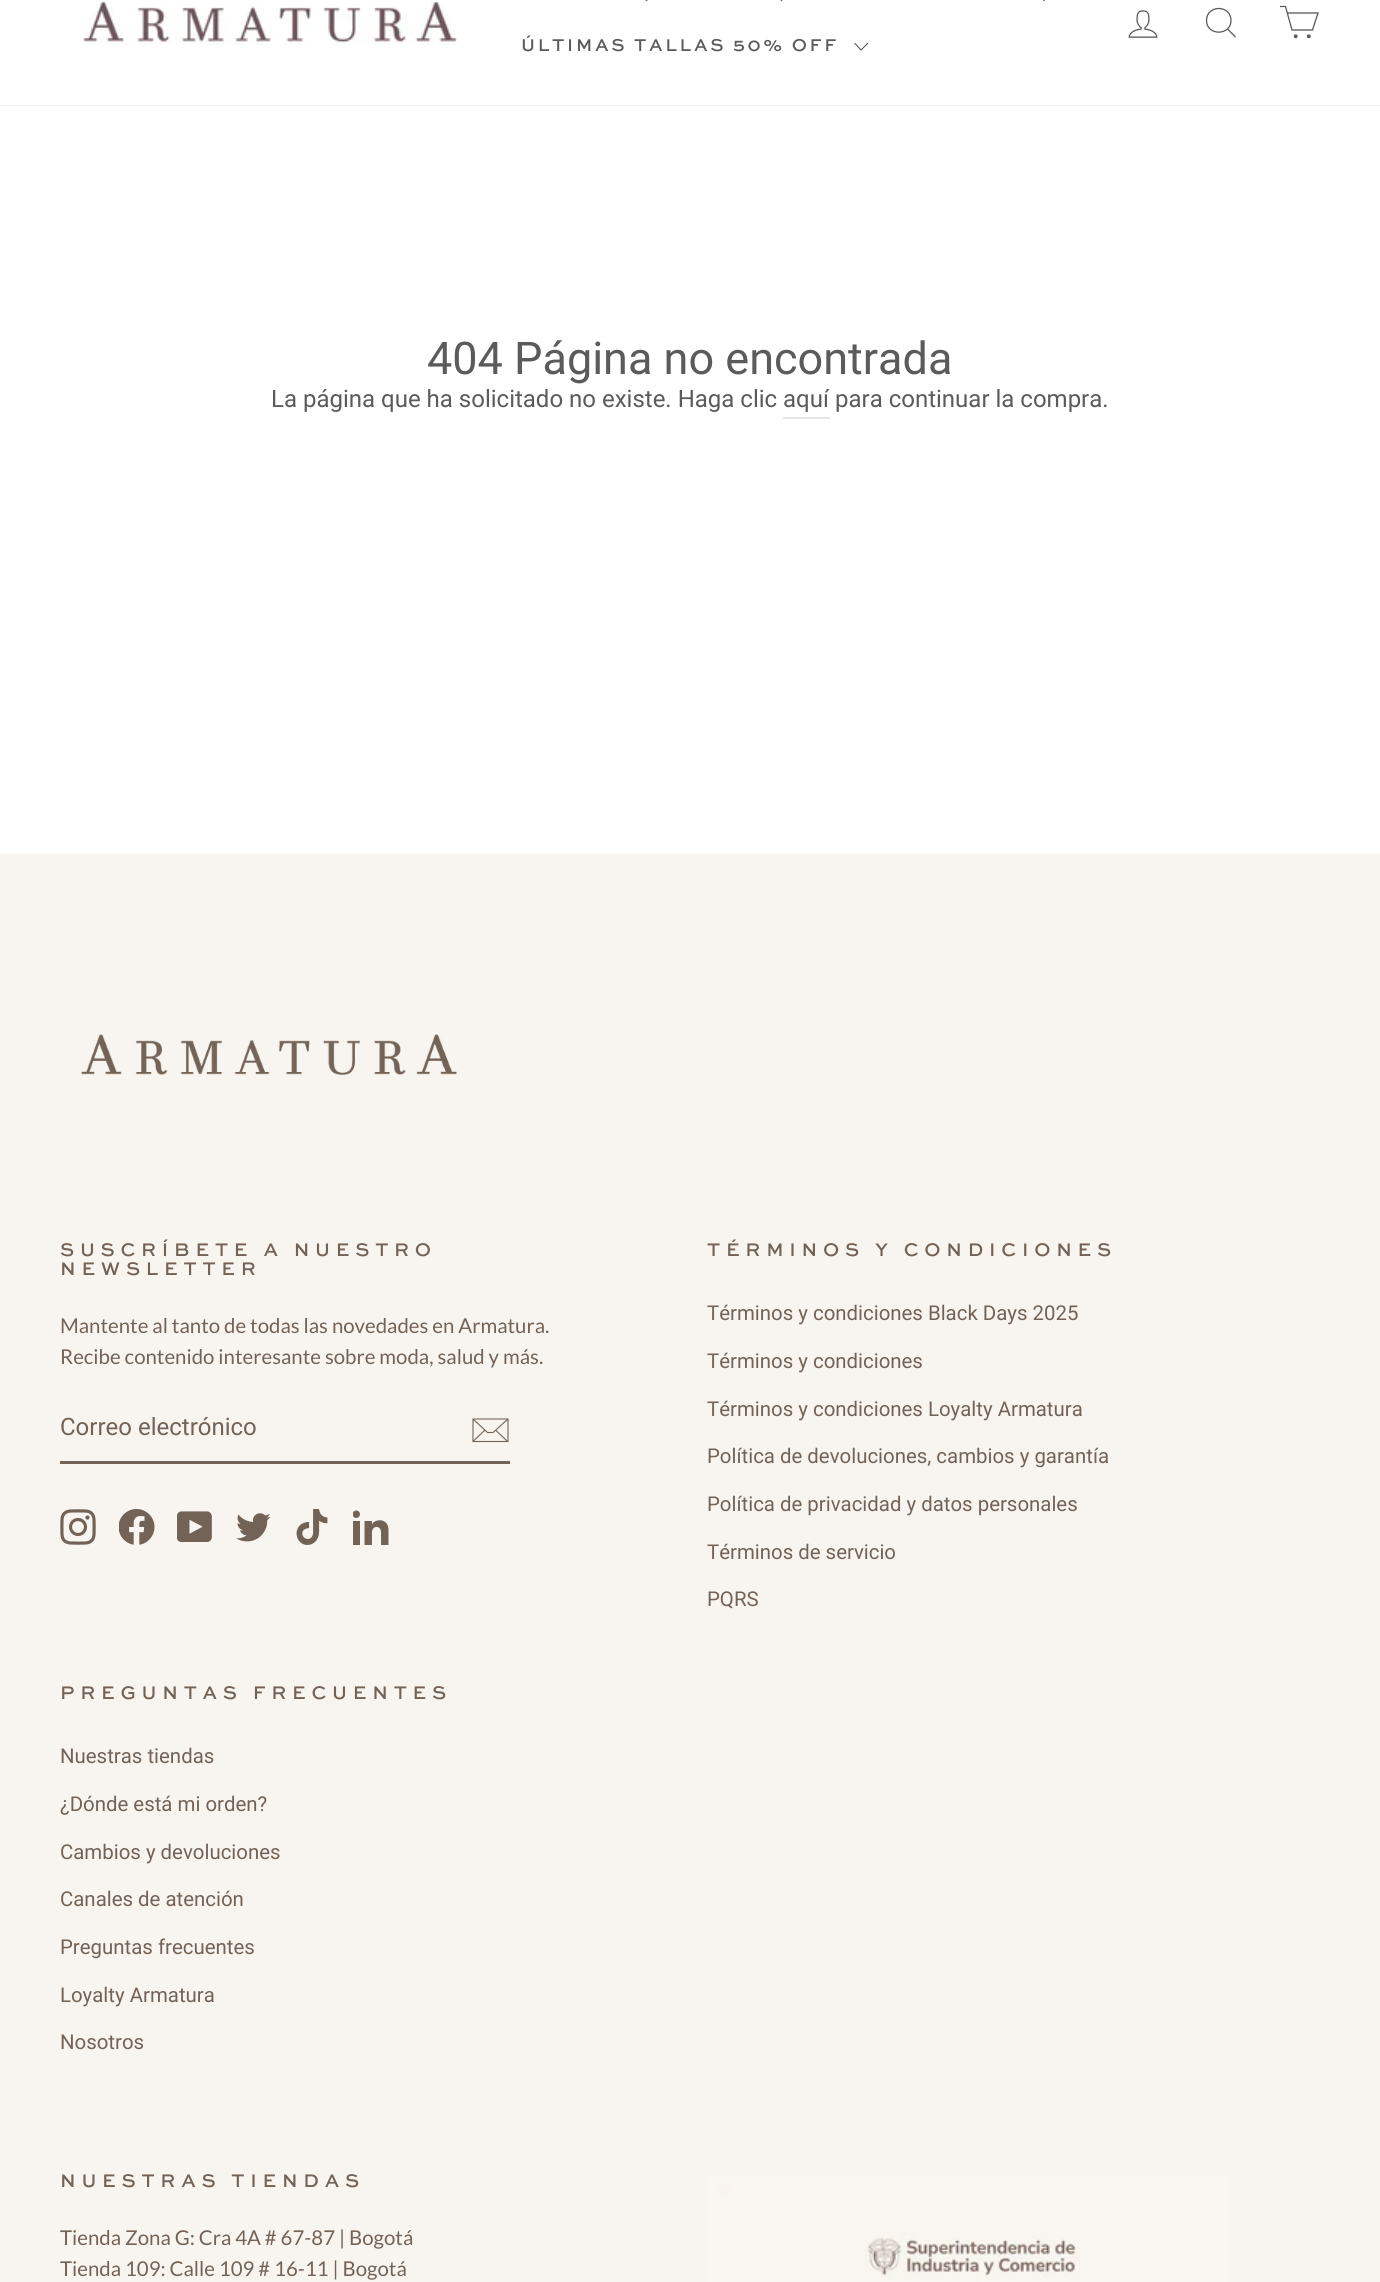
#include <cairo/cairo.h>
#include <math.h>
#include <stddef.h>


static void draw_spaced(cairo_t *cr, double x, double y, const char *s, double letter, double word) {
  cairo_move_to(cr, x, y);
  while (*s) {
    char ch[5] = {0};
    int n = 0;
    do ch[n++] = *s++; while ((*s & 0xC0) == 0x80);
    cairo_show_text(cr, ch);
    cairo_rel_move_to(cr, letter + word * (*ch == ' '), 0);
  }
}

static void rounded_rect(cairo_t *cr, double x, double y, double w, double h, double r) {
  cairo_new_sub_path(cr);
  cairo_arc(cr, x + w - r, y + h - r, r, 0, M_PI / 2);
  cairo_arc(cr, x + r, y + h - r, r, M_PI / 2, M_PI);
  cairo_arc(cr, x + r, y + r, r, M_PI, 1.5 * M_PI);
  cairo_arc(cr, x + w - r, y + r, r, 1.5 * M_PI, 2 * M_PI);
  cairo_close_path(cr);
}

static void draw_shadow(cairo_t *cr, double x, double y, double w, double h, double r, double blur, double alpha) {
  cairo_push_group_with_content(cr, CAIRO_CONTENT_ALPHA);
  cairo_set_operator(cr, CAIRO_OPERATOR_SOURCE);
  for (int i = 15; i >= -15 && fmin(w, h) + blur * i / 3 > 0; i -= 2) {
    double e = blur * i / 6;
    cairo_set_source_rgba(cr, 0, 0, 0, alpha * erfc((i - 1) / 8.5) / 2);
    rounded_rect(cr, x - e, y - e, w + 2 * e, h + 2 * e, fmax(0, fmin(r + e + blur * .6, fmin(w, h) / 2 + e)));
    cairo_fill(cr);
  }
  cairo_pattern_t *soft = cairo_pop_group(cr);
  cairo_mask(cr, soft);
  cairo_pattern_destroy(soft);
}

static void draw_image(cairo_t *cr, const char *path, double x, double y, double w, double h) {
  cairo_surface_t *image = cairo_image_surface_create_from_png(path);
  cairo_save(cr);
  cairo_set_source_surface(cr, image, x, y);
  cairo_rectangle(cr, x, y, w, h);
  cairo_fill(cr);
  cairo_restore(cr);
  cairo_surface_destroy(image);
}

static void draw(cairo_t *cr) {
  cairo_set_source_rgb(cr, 1, 1, 1);
  cairo_paint(cr);
  cairo_save(cr);
  cairo_rectangle(cr, 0, 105, 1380, 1);
  cairo_clip(cr);
  cairo_set_source_rgb(cr, 0, 0, 0);
  draw_shadow(cr, 0, -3, 1380, 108, 0, 1, 0.2);
  cairo_restore(cr);
  draw_image(cr, "images/1.png", 83, 1, 374, 44);
  draw_image(cr, "images/2.png", 1128, 10, 30, 28);
  cairo_new_path(cr);
  cairo_move_to(cr, 1231, 20.5);
  cairo_curve_to(cr, 1231, 36, 1206.5, 36, 1206.5, 20.5);
  cairo_curve_to(cr, 1206.5, 4.5, 1231, 4.5, 1231, 20.5);
  cairo_close_path(cr);
  cairo_move_to(cr, 1235.5, 37);
  cairo_line_to(cr, 1227.5, 29);
  cairo_set_source_rgb(cr, 91 / 255.0, 91 / 255.0, 91 / 255.0);
  cairo_set_line_width(cr, 1.3);
  cairo_stroke(cr);
  cairo_new_path(cr);
  cairo_move_to(cr, 1287, 13);
  cairo_line_to(cr, 1318, 13);
  cairo_line_to(cr, 1312.5, 30);
  cairo_line_to(cr, 1292, 30);
  cairo_line_to(cr, 1285.5, 6.5);
  cairo_line_to(cr, 1280, 6.5);
  cairo_stroke(cr);
  cairo_arc(cr, 1295.7, 36.3, 1.3, 0, 2 * M_PI);
  cairo_fill_preserve(cr);
  cairo_stroke(cr);
  cairo_arc(cr, 1308.8, 36.3, 1.3, 0, 2 * M_PI);
  cairo_fill_preserve(cr);
  cairo_stroke(cr);
  cairo_new_path(cr);
  cairo_move_to(cr, 640, -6.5);
  cairo_line_to(cr, 646.5, 0.5);
  cairo_line_to(cr, 653.5, -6.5);
  cairo_set_line_width(cr, 1.1);
  cairo_stroke(cr);
  cairo_new_path(cr);
  cairo_move_to(cr, 775, -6.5);
  cairo_line_to(cr, 781.5, 0.5);
  cairo_line_to(cr, 788.5, -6.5);
  cairo_stroke(cr);
  cairo_new_path(cr);
  cairo_move_to(cr, 1037.5, -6.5);
  cairo_line_to(cr, 1044, 0.5);
  cairo_line_to(cr, 1051, -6.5);
  cairo_stroke(cr);
  cairo_new_path(cr);
  cairo_move_to(cr, 854.5, 43);
  cairo_line_to(cr, 861, 50);
  cairo_line_to(cr, 868, 43);
  cairo_stroke(cr);
  cairo_set_source_rgb(cr, 230 / 255.0, 230 / 255.0, 230 / 255.0);
  cairo_rectangle(cr, 783, 417, 47, 2);
  cairo_fill(cr);
  cairo_set_source_rgb(cr, 248 / 255.0, 245 / 255.0, 240 / 255.0);
  cairo_rectangle(cr, 0, 854, 1380, 1428);
  cairo_fill(cr);
  draw_image(cr, "images/3.png", 81, 1034, 376, 41);
  cairo_set_source_rgb(cr, 115 / 255.0, 99 / 255.0, 87 / 255.0);
  cairo_rectangle(cr, 60, 1461, 450, 3);
  cairo_fill(cr);
  cairo_new_path(cr);
  cairo_move_to(cr, 508, 1441.5);
  cairo_line_to(cr, 473, 1441.5);
  cairo_line_to(cr, 473, 1419);
  cairo_line_to(cr, 508, 1419);
  cairo_close_path(cr);
  cairo_move_to(cr, 473, 1419);
  cairo_line_to(cr, 487.5, 1432.5);
  cairo_line_to(cr, 493, 1432.5);
  cairo_line_to(cr, 508, 1419);
  cairo_move_to(cr, 485, 1430);
  cairo_line_to(cr, 473.5, 1441);
  cairo_move_to(cr, 507.5, 1441.5);
  cairo_line_to(cr, 495.5, 1430);
  cairo_stroke(cr);
  draw_image(cr, "images/4.png", 60, 1509, 36, 36);
  draw_image(cr, "images/5.png", 119, 1509, 36, 36);
  draw_image(cr, "images/6.png", 177, 1511, 35, 31);
  draw_image(cr, "images/7.png", 236, 1513, 35, 29);
  draw_image(cr, "images/8.png", 296, 1509, 32, 36);
  draw_image(cr, "images/9.png", 353, 1510, 36, 35);
  draw_image(cr, "images/10.png", 707, 2174, 523, 108);
  cairo_select_font_face(cr, "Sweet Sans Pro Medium", CAIRO_FONT_SLANT_NORMAL, CAIRO_FONT_WEIGHT_NORMAL);
  cairo_set_font_size(cr, 18);
  cairo_set_source_rgb(cr, 91 / 255.0, 91 / 255.0, 91 / 255.0);
  draw_spaced(cr, 521, 51, "ÚLTIMAS TALLAS 50% OFF", 2.7, 0);
  cairo_select_font_face(cr, "Roboto", CAIRO_FONT_SLANT_NORMAL, CAIRO_FONT_WEIGHT_NORMAL);
  cairo_set_font_size(cr, 45);
  cairo_move_to(cr, 427, 374);
  cairo_show_text(cr, "404 Página no encontrada");
  cairo_set_font_size(cr, 24);
  cairo_move_to(cr, 271, 407);
  cairo_show_text(cr, "La página que ha solicitado no existe. Haga clic aquí");
  cairo_move_to(cr, 835, 407);
  cairo_show_text(cr, "para continuar la compra.");
  cairo_select_font_face(cr, "Sweet Sans Pro Medium", CAIRO_FONT_SLANT_NORMAL, CAIRO_FONT_WEIGHT_NORMAL);
  cairo_set_font_size(cr, 19.2);
  cairo_set_source_rgb(cr, 115 / 255.0, 99 / 255.0, 87 / 255.0);
  draw_spaced(cr, 60, 1256, "SUSCRÍBETE A NUESTRO", 5.75, 0);
  draw_spaced(cr, 60, 1275, "NEWSLETTER", 5.75, 0);
  cairo_select_font_face(cr, "Lato", CAIRO_FONT_SLANT_NORMAL, CAIRO_FONT_WEIGHT_NORMAL);
  cairo_set_font_size(cr, 20.4);
  cairo_move_to(cr, 60, 1333);
  cairo_show_text(cr, "Mantente al tanto de todas las novedades en Armatura.");
  cairo_move_to(cr, 60, 1364);
  cairo_show_text(cr, "Recibe contenido interesante sobre moda, salud y más.");
  cairo_select_font_face(cr, "Roboto", CAIRO_FONT_SLANT_NORMAL, CAIRO_FONT_WEIGHT_NORMAL);
  cairo_set_font_size(cr, 24);
  cairo_move_to(cr, 60, 1435);
  cairo_show_text(cr, "Correo electrónico");
  cairo_select_font_face(cr, "Sweet Sans Pro Medium", CAIRO_FONT_SLANT_NORMAL, CAIRO_FONT_WEIGHT_NORMAL);
  cairo_set_font_size(cr, 19.2);
  draw_spaced(cr, 707, 1256, "TÉRMINOS Y CONDICIONES", 5.75, 0);
  cairo_select_font_face(cr, "Roboto", CAIRO_FONT_SLANT_NORMAL, CAIRO_FONT_WEIGHT_NORMAL);
  cairo_set_font_size(cr, 20.4);
  cairo_move_to(cr, 707, 1320);
  cairo_show_text(cr, "Términos y condiciones Black Days 2025");
  cairo_move_to(cr, 707, 1368);
  cairo_show_text(cr, "Términos y condiciones");
  cairo_move_to(cr, 707, 1416);
  cairo_show_text(cr, "Términos y condiciones Loyalty Armatura");
  cairo_move_to(cr, 707, 1463);
  cairo_show_text(cr, "Política de devoluciones, cambios y garantía");
  cairo_move_to(cr, 707, 1511);
  cairo_show_text(cr, "Política de privacidad y datos personales");
  cairo_move_to(cr, 707, 1559);
  cairo_show_text(cr, "Términos de servicio");
  cairo_move_to(cr, 707, 1606);
  cairo_show_text(cr, "PQRS");
  cairo_select_font_face(cr, "Sweet Sans Pro Medium", CAIRO_FONT_SLANT_NORMAL, CAIRO_FONT_WEIGHT_NORMAL);
  cairo_set_font_size(cr, 19.2);
  draw_spaced(cr, 60, 1699, "PREGUNTAS FRECUENTES", 5.75, 0);
  cairo_select_font_face(cr, "Roboto", CAIRO_FONT_SLANT_NORMAL, CAIRO_FONT_WEIGHT_NORMAL);
  cairo_set_font_size(cr, 20.4);
  cairo_move_to(cr, 60, 1763);
  cairo_show_text(cr, "Nuestras tiendas");
  cairo_move_to(cr, 60, 1811);
  cairo_show_text(cr, "¿Dónde está mi orden?");
  cairo_move_to(cr, 60, 1859);
  cairo_show_text(cr, "Cambios y devoluciones");
  cairo_move_to(cr, 60, 1906);
  cairo_show_text(cr, "Canales de atención");
  cairo_move_to(cr, 60, 1954);
  cairo_show_text(cr, "Preguntas frecuentes");
  cairo_move_to(cr, 60, 2002);
  cairo_show_text(cr, "Loyalty Armatura");
  cairo_move_to(cr, 60, 2049);
  cairo_show_text(cr, "Nosotros");
  cairo_select_font_face(cr, "Sweet Sans Pro Medium", CAIRO_FONT_SLANT_NORMAL, CAIRO_FONT_WEIGHT_NORMAL);
  cairo_set_font_size(cr, 19.2);
  draw_spaced(cr, 60, 2187, "NUESTRAS TIENDAS", 5.75, 0);
  cairo_select_font_face(cr, "Lato", CAIRO_FONT_SLANT_NORMAL, CAIRO_FONT_WEIGHT_NORMAL);
  cairo_set_font_size(cr, 20.4);
  cairo_move_to(cr, 60, 2245);
  cairo_show_text(cr, "Tienda Zona G: Cra 4A # 67-87 | Bogotá");
  cairo_move_to(cr, 60, 2276);
  cairo_show_text(cr, "Tienda 109: Calle 109 # 16-11 | Bogotá");
}

int main(void) {
  cairo_surface_t *surface = cairo_image_surface_create(CAIRO_FORMAT_RGB24, 1380, 2282);
  cairo_t *cr = cairo_create(surface);
  cairo_font_options_t *options = cairo_font_options_create();
  cairo_font_options_set_hint_metrics(options, CAIRO_HINT_METRICS_OFF);
  cairo_font_options_set_hint_style(options, CAIRO_HINT_STYLE_NONE);
  cairo_set_font_options(cr, options);
  cairo_set_miter_limit(cr, 4);
  draw(cr);
  cairo_surface_write_to_png(surface, "out.png");
  cairo_font_options_destroy(options);
  cairo_destroy(cr);
  cairo_surface_destroy(surface);
  return 0;
}
